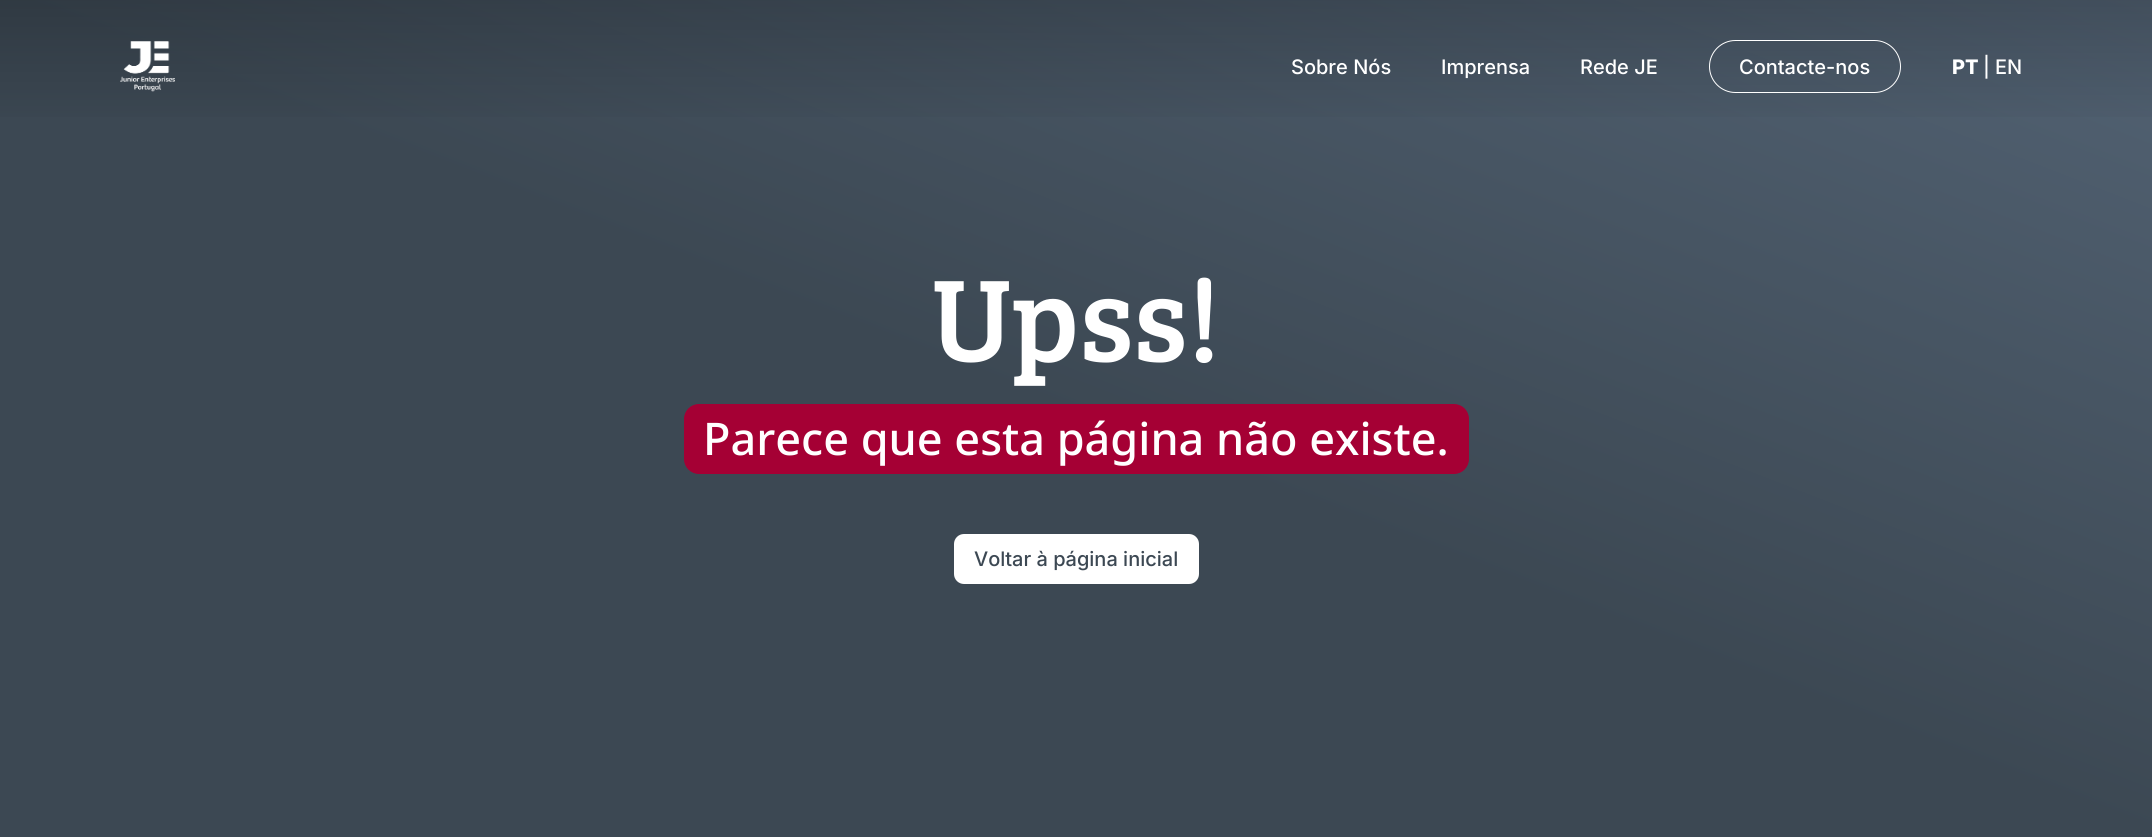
#include <cairo/cairo.h>
#include <math.h>
#include <stddef.h>


static void rounded_rect(cairo_t *cr, double x, double y, double w, double h, double r) {
  cairo_new_sub_path(cr);
  cairo_arc(cr, x + w - r, y + h - r, r, 0, M_PI / 2);
  cairo_arc(cr, x + r, y + h - r, r, M_PI / 2, M_PI);
  cairo_arc(cr, x + r, y + r, r, M_PI, 1.5 * M_PI);
  cairo_arc(cr, x + w - r, y + r, r, 1.5 * M_PI, 2 * M_PI);
  cairo_close_path(cr);
}

static void draw_image(cairo_t *cr, const char *path, double x, double y, double w, double h) {
  cairo_surface_t *image = cairo_image_surface_create_from_png(path);
  cairo_save(cr);
  cairo_set_source_surface(cr, image, x, y);
  cairo_rectangle(cr, x, y, w, h);
  cairo_fill(cr);
  cairo_restore(cr);
  cairo_surface_destroy(image);
}

static void draw(cairo_t *cr) {
  cairo_pattern_t *gradient;
  cairo_set_source_rgb(cr, 1, 1, 1);
  cairo_paint(cr);
  gradient = cairo_pattern_create_linear(793, 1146, 1359, -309);
  cairo_pattern_add_color_stop_rgba(gradient, 0, 60 / 255.0, 72 / 255.0, 83 / 255.0, 1);
  cairo_pattern_add_color_stop_rgba(gradient, 0.5, 60 / 255.0, 72 / 255.0, 83 / 255.0, 1);
  cairo_pattern_add_color_stop_rgba(gradient, 1, 82 / 255.0, 98 / 255.0, 115 / 255.0, 1);
  cairo_set_source(cr, gradient);
  cairo_pattern_destroy(gradient);
  cairo_rectangle(cr, 0, 0, 2152, 837);
  cairo_fill(cr);
  gradient = cairo_pattern_create_linear(1076, 0, 1076, 133);
  cairo_pattern_add_color_stop_rgba(gradient, 0, 0, 0, 0, 0.2);
  cairo_pattern_add_color_stop_rgba(gradient, 1, 0, 0, 0, 0);
  cairo_set_source(cr, gradient);
  cairo_pattern_destroy(gradient);
  cairo_rectangle(cr, 0, 0, 2152, 117);
  cairo_fill(cr);
  draw_image(cr, "images/1.png", 120, 41, 55, 51);
  rounded_rect(cr, 1709.5, 40.5, 191, 52, 26);
  cairo_set_source_rgb(cr, 1, 1, 1);
  cairo_set_line_width(cr, 1);
  cairo_stroke(cr);
  cairo_set_source_rgb(cr, 165 / 255.0, 0, 52 / 255.0);
  rounded_rect(cr, 684, 404, 785, 70, 15);
  cairo_fill(cr);
  cairo_set_source_rgb(cr, 1, 1, 1);
  rounded_rect(cr, 954, 534, 245, 50, 10);
  cairo_fill(cr);
  cairo_select_font_face(cr, "Inter Medium", CAIRO_FONT_SLANT_NORMAL, CAIRO_FONT_WEIGHT_NORMAL);
  cairo_set_font_size(cr, 20);
  cairo_move_to(cr, 1291, 74);
  cairo_show_text(cr, "Sobre Nós");
  cairo_move_to(cr, 1441, 74);
  cairo_show_text(cr, "Imprensa");
  cairo_move_to(cr, 1580, 74);
  cairo_show_text(cr, "Rede JE");
  cairo_move_to(cr, 1739, 74);
  cairo_show_text(cr, "Contacte-nos");
  cairo_select_font_face(cr, "Inter ExtraBold", CAIRO_FONT_SLANT_NORMAL, CAIRO_FONT_WEIGHT_NORMAL);
  cairo_move_to(cr, 1952, 74);
  cairo_show_text(cr, "PT");
  cairo_select_font_face(cr, "Inter Medium", CAIRO_FONT_SLANT_NORMAL, CAIRO_FONT_WEIGHT_NORMAL);
  cairo_move_to(cr, 1983, 74);
  cairo_show_text(cr, "|");
  cairo_move_to(cr, 1995, 74);
  cairo_show_text(cr, "EN");
  cairo_select_font_face(cr, "Bree Serif", CAIRO_FONT_SLANT_NORMAL, CAIRO_FONT_WEIGHT_NORMAL);
  cairo_set_font_size(cr, 120);
  cairo_move_to(cr, 932, 361);
  cairo_show_text(cr, "Upss!");
  cairo_select_font_face(cr, "Noto Sans Medium", CAIRO_FONT_SLANT_NORMAL, CAIRO_FONT_WEIGHT_NORMAL);
  cairo_set_font_size(cr, 45);
  cairo_move_to(cr, 703, 455);
  cairo_show_text(cr, "Parece que esta página não existe.");
  cairo_select_font_face(cr, "Inter Medium", CAIRO_FONT_SLANT_NORMAL, CAIRO_FONT_WEIGHT_NORMAL);
  cairo_set_font_size(cr, 20);
  cairo_set_source_rgb(cr, 60 / 255.0, 72 / 255.0, 83 / 255.0);
  cairo_move_to(cr, 974, 566);
  cairo_show_text(cr, "Voltar à página inicial");
}

int main(void) {
  cairo_surface_t *surface = cairo_image_surface_create(CAIRO_FORMAT_RGB24, 2152, 837);
  cairo_t *cr = cairo_create(surface);
  cairo_font_options_t *options = cairo_font_options_create();
  cairo_font_options_set_hint_metrics(options, CAIRO_HINT_METRICS_OFF);
  cairo_font_options_set_hint_style(options, CAIRO_HINT_STYLE_NONE);
  cairo_set_font_options(cr, options);
  cairo_set_miter_limit(cr, 4);
  draw(cr);
  cairo_surface_write_to_png(surface, "out.png");
  cairo_font_options_destroy(options);
  cairo_destroy(cr);
  cairo_surface_destroy(surface);
  return 0;
}
